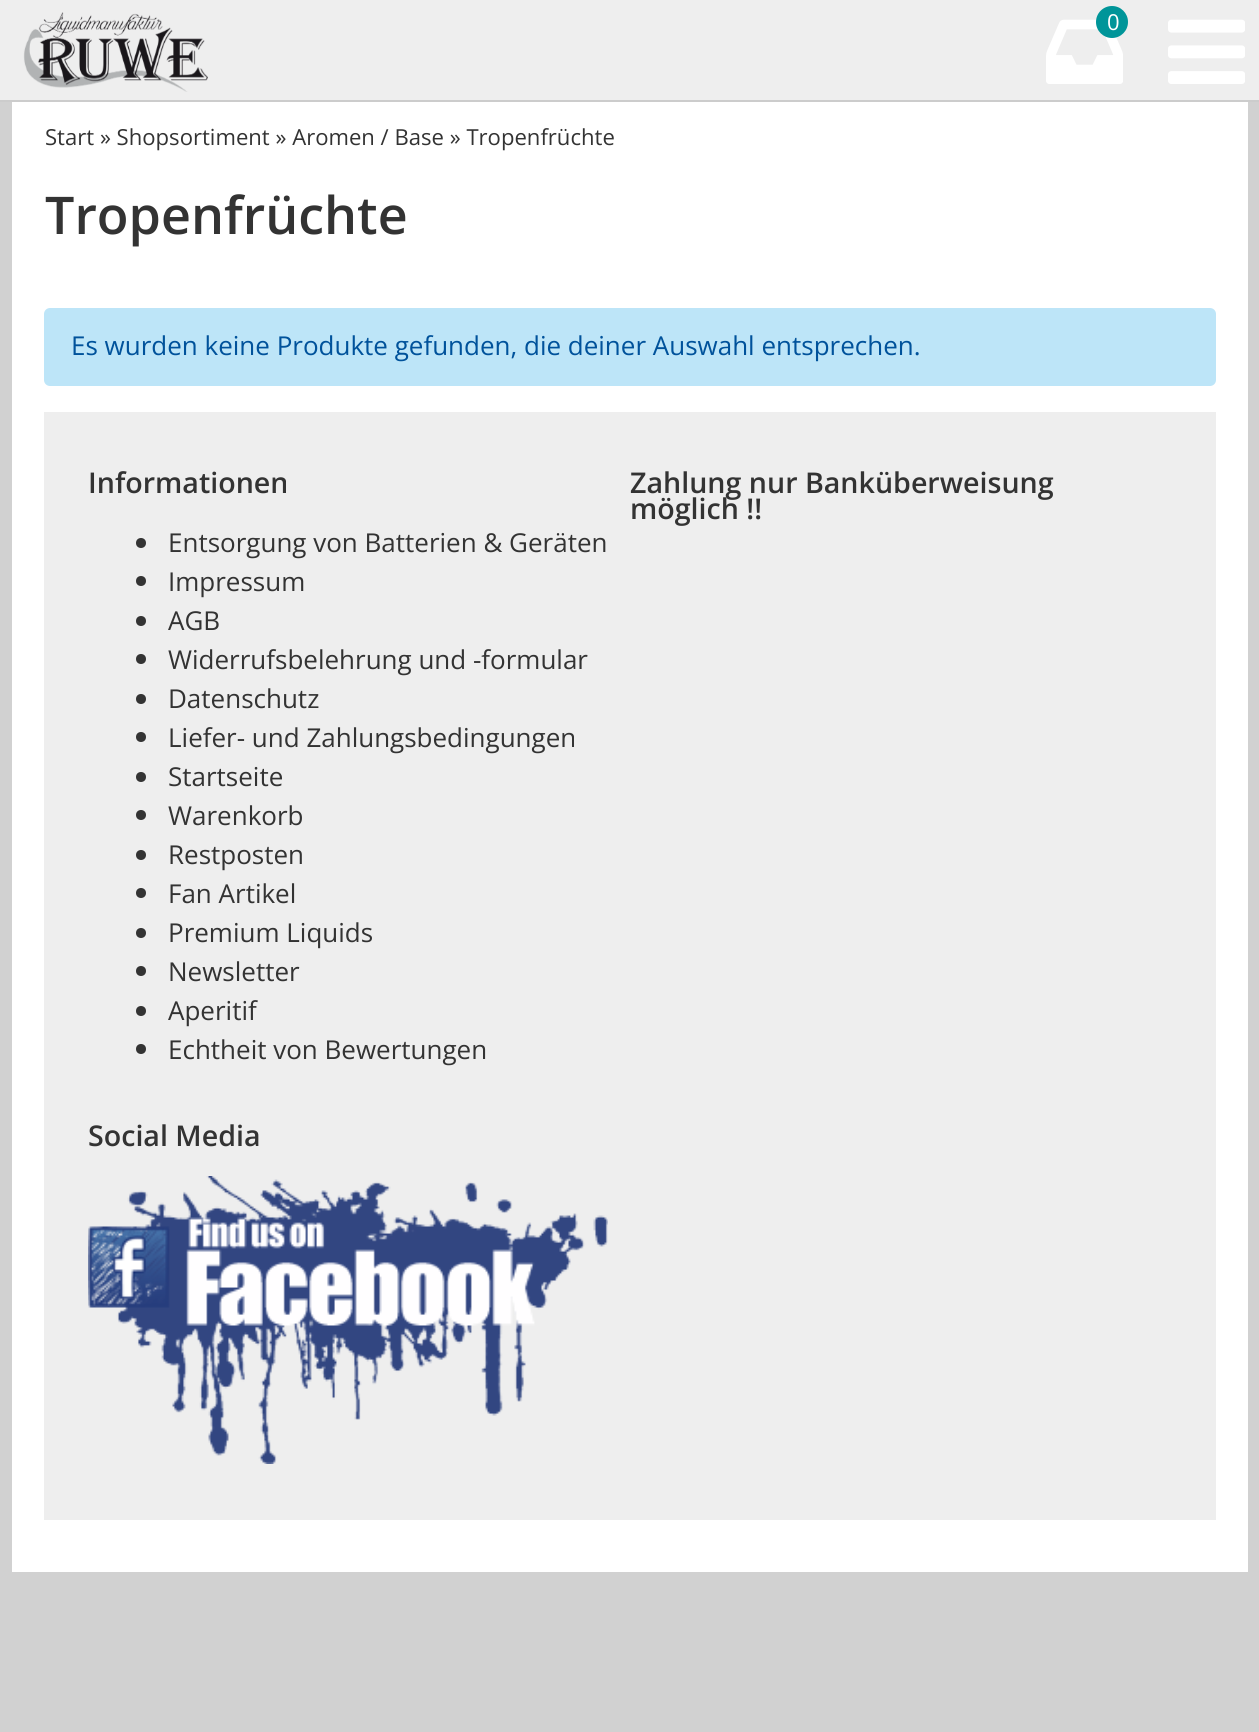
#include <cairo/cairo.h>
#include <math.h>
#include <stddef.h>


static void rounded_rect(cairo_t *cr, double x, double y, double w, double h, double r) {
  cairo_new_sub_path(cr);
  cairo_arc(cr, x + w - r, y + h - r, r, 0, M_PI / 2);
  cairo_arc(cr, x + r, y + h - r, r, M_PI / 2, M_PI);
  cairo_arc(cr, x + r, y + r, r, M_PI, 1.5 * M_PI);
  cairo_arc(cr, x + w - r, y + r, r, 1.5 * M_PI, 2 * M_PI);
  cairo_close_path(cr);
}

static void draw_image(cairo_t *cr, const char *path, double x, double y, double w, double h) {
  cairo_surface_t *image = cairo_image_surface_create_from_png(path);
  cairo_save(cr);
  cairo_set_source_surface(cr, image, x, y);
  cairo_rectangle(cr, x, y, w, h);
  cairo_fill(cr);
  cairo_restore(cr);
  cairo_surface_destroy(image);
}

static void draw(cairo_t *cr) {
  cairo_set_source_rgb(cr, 209 / 255.0, 209 / 255.0, 209 / 255.0);
  cairo_paint(cr);
  cairo_set_source_rgb(cr, 238 / 255.0, 238 / 255.0, 238 / 255.0);
  cairo_rectangle(cr, 0, 0, 1259, 100);
  cairo_fill(cr);
  cairo_set_source_rgb(cr, 204 / 255.0, 204 / 255.0, 204 / 255.0);
  cairo_rectangle(cr, 0, 100, 1259, 2);
  cairo_fill(cr);
  draw_image(cr, "images/1.png", 23, 12, 185, 80);
  draw_image(cr, "images/2.png", 1046, 19, 77, 65);
  cairo_set_source_rgb(cr, 0, 149 / 255.0, 153 / 255.0);
  cairo_arc(cr, 1112, 22, 16, 0, 2 * M_PI);
  cairo_fill(cr);
  draw_image(cr, "images/3.png", 1168, 19, 77, 65);
  cairo_set_source_rgb(cr, 1, 1, 1);
  cairo_rectangle(cr, 12, 102, 1236, 1470);
  cairo_fill(cr);
  cairo_set_source_rgb(cr, 189 / 255.0, 229 / 255.0, 248 / 255.0);
  rounded_rect(cr, 44, 308, 1172, 78, 6);
  cairo_fill(cr);
  cairo_set_source_rgb(cr, 238 / 255.0, 238 / 255.0, 238 / 255.0);
  cairo_rectangle(cr, 44, 412, 1172, 1108);
  cairo_fill(cr);
  cairo_set_source_rgb(cr, 51 / 255.0, 51 / 255.0, 51 / 255.0);
  cairo_arc(cr, 141, 543, 5, 0, 2 * M_PI);
  cairo_fill(cr);
  cairo_arc(cr, 141, 581, 5, 0, 2 * M_PI);
  cairo_fill(cr);
  cairo_arc(cr, 141, 621, 5, 0, 2 * M_PI);
  cairo_fill(cr);
  cairo_arc(cr, 141, 659, 5, 0, 2 * M_PI);
  cairo_fill(cr);
  cairo_arc(cr, 141, 699, 5, 0, 2 * M_PI);
  cairo_fill(cr);
  cairo_arc(cr, 141, 737, 5, 0, 2 * M_PI);
  cairo_fill(cr);
  cairo_arc(cr, 141, 777, 5, 0, 2 * M_PI);
  cairo_fill(cr);
  cairo_arc(cr, 141, 815, 5, 0, 2 * M_PI);
  cairo_fill(cr);
  cairo_arc(cr, 141, 855, 5, 0, 2 * M_PI);
  cairo_fill(cr);
  cairo_arc(cr, 141, 893, 5, 0, 2 * M_PI);
  cairo_fill(cr);
  cairo_arc(cr, 141, 933, 5, 0, 2 * M_PI);
  cairo_fill(cr);
  cairo_arc(cr, 141, 971, 5, 0, 2 * M_PI);
  cairo_fill(cr);
  cairo_arc(cr, 141, 1011, 5, 0, 2 * M_PI);
  cairo_fill(cr);
  cairo_arc(cr, 141, 1049, 5, 0, 2 * M_PI);
  cairo_fill(cr);
  draw_image(cr, "images/4.png", 88, 1176, 520, 288);
  cairo_select_font_face(cr, "Open Sans", CAIRO_FONT_SLANT_NORMAL, CAIRO_FONT_WEIGHT_NORMAL);
  cairo_set_font_size(cr, 22);
  cairo_set_source_rgb(cr, 1, 1, 1);
  cairo_move_to(cr, 1107, 30);
  cairo_show_text(cr, "0");
  cairo_set_font_size(cr, 22.1);
  cairo_set_source_rgb(cr, 51 / 255.0, 51 / 255.0, 51 / 255.0);
  cairo_move_to(cr, 45, 145);
  cairo_show_text(cr, "Start » Shopsortiment » Aromen / Base » Tropenfrüchte");
  cairo_select_font_face(cr, "Open Sans SemiBold", CAIRO_FONT_SLANT_NORMAL, CAIRO_FONT_WEIGHT_NORMAL);
  cairo_set_font_size(cr, 52);
  cairo_move_to(cr, 45, 234);
  cairo_show_text(cr, "Tropenfrüchte");
  cairo_select_font_face(cr, "Open Sans", CAIRO_FONT_SLANT_NORMAL, CAIRO_FONT_WEIGHT_NORMAL);
  cairo_set_font_size(cr, 26);
  cairo_set_source_rgb(cr, 0, 82 / 255.0, 155 / 255.0);
  cairo_move_to(cr, 71, 355);
  cairo_show_text(cr, "Es wurden keine Produkte gefunden, die deiner Auswahl entsprechen.");
  cairo_select_font_face(cr, "Open Sans SemiBold", CAIRO_FONT_SLANT_NORMAL, CAIRO_FONT_WEIGHT_NORMAL);
  cairo_set_font_size(cr, 28.6);
  cairo_set_source_rgb(cr, 51 / 255.0, 51 / 255.0, 51 / 255.0);
  cairo_move_to(cr, 88, 493);
  cairo_show_text(cr, "Informationen");
  cairo_select_font_face(cr, "Open Sans", CAIRO_FONT_SLANT_NORMAL, CAIRO_FONT_WEIGHT_NORMAL);
  cairo_set_font_size(cr, 26);
  cairo_move_to(cr, 168, 552);
  cairo_show_text(cr, "Entsorgung von Batterien & Geräten");
  cairo_move_to(cr, 168, 591);
  cairo_show_text(cr, "Impressum");
  cairo_move_to(cr, 168, 630);
  cairo_show_text(cr, "AGB");
  cairo_move_to(cr, 168, 669);
  cairo_show_text(cr, "Widerrufsbelehrung und -formular");
  cairo_move_to(cr, 168, 708);
  cairo_show_text(cr, "Datenschutz");
  cairo_move_to(cr, 168, 747);
  cairo_show_text(cr, "Liefer- und Zahlungsbedingungen");
  cairo_move_to(cr, 168, 786);
  cairo_show_text(cr, "Startseite");
  cairo_move_to(cr, 168, 825);
  cairo_show_text(cr, "Warenkorb");
  cairo_move_to(cr, 168, 864);
  cairo_show_text(cr, "Restposten");
  cairo_move_to(cr, 168, 903);
  cairo_show_text(cr, "Fan Artikel");
  cairo_move_to(cr, 168, 942);
  cairo_show_text(cr, "Premium Liquids");
  cairo_move_to(cr, 168, 981);
  cairo_show_text(cr, "Newsletter");
  cairo_move_to(cr, 168, 1020);
  cairo_show_text(cr, "Aperitif");
  cairo_move_to(cr, 168, 1059);
  cairo_show_text(cr, "Echtheit von Bewertungen");
  cairo_select_font_face(cr, "Open Sans SemiBold", CAIRO_FONT_SLANT_NORMAL, CAIRO_FONT_WEIGHT_NORMAL);
  cairo_set_font_size(cr, 28.6);
  cairo_move_to(cr, 630, 493);
  cairo_show_text(cr, "Zahlung nur Banküberweisung");
  cairo_move_to(cr, 630, 519);
  cairo_show_text(cr, "möglich !!");
  cairo_move_to(cr, 88, 1146);
  cairo_show_text(cr, "Social Media");
}

int main(void) {
  cairo_surface_t *surface = cairo_image_surface_create(CAIRO_FORMAT_RGB24, 1259, 1732);
  cairo_t *cr = cairo_create(surface);
  cairo_font_options_t *options = cairo_font_options_create();
  cairo_font_options_set_hint_metrics(options, CAIRO_HINT_METRICS_OFF);
  cairo_font_options_set_hint_style(options, CAIRO_HINT_STYLE_NONE);
  cairo_set_font_options(cr, options);
  cairo_set_miter_limit(cr, 4);
  draw(cr);
  cairo_surface_write_to_png(surface, "out.png");
  cairo_font_options_destroy(options);
  cairo_destroy(cr);
  cairo_surface_destroy(surface);
  return 0;
}
